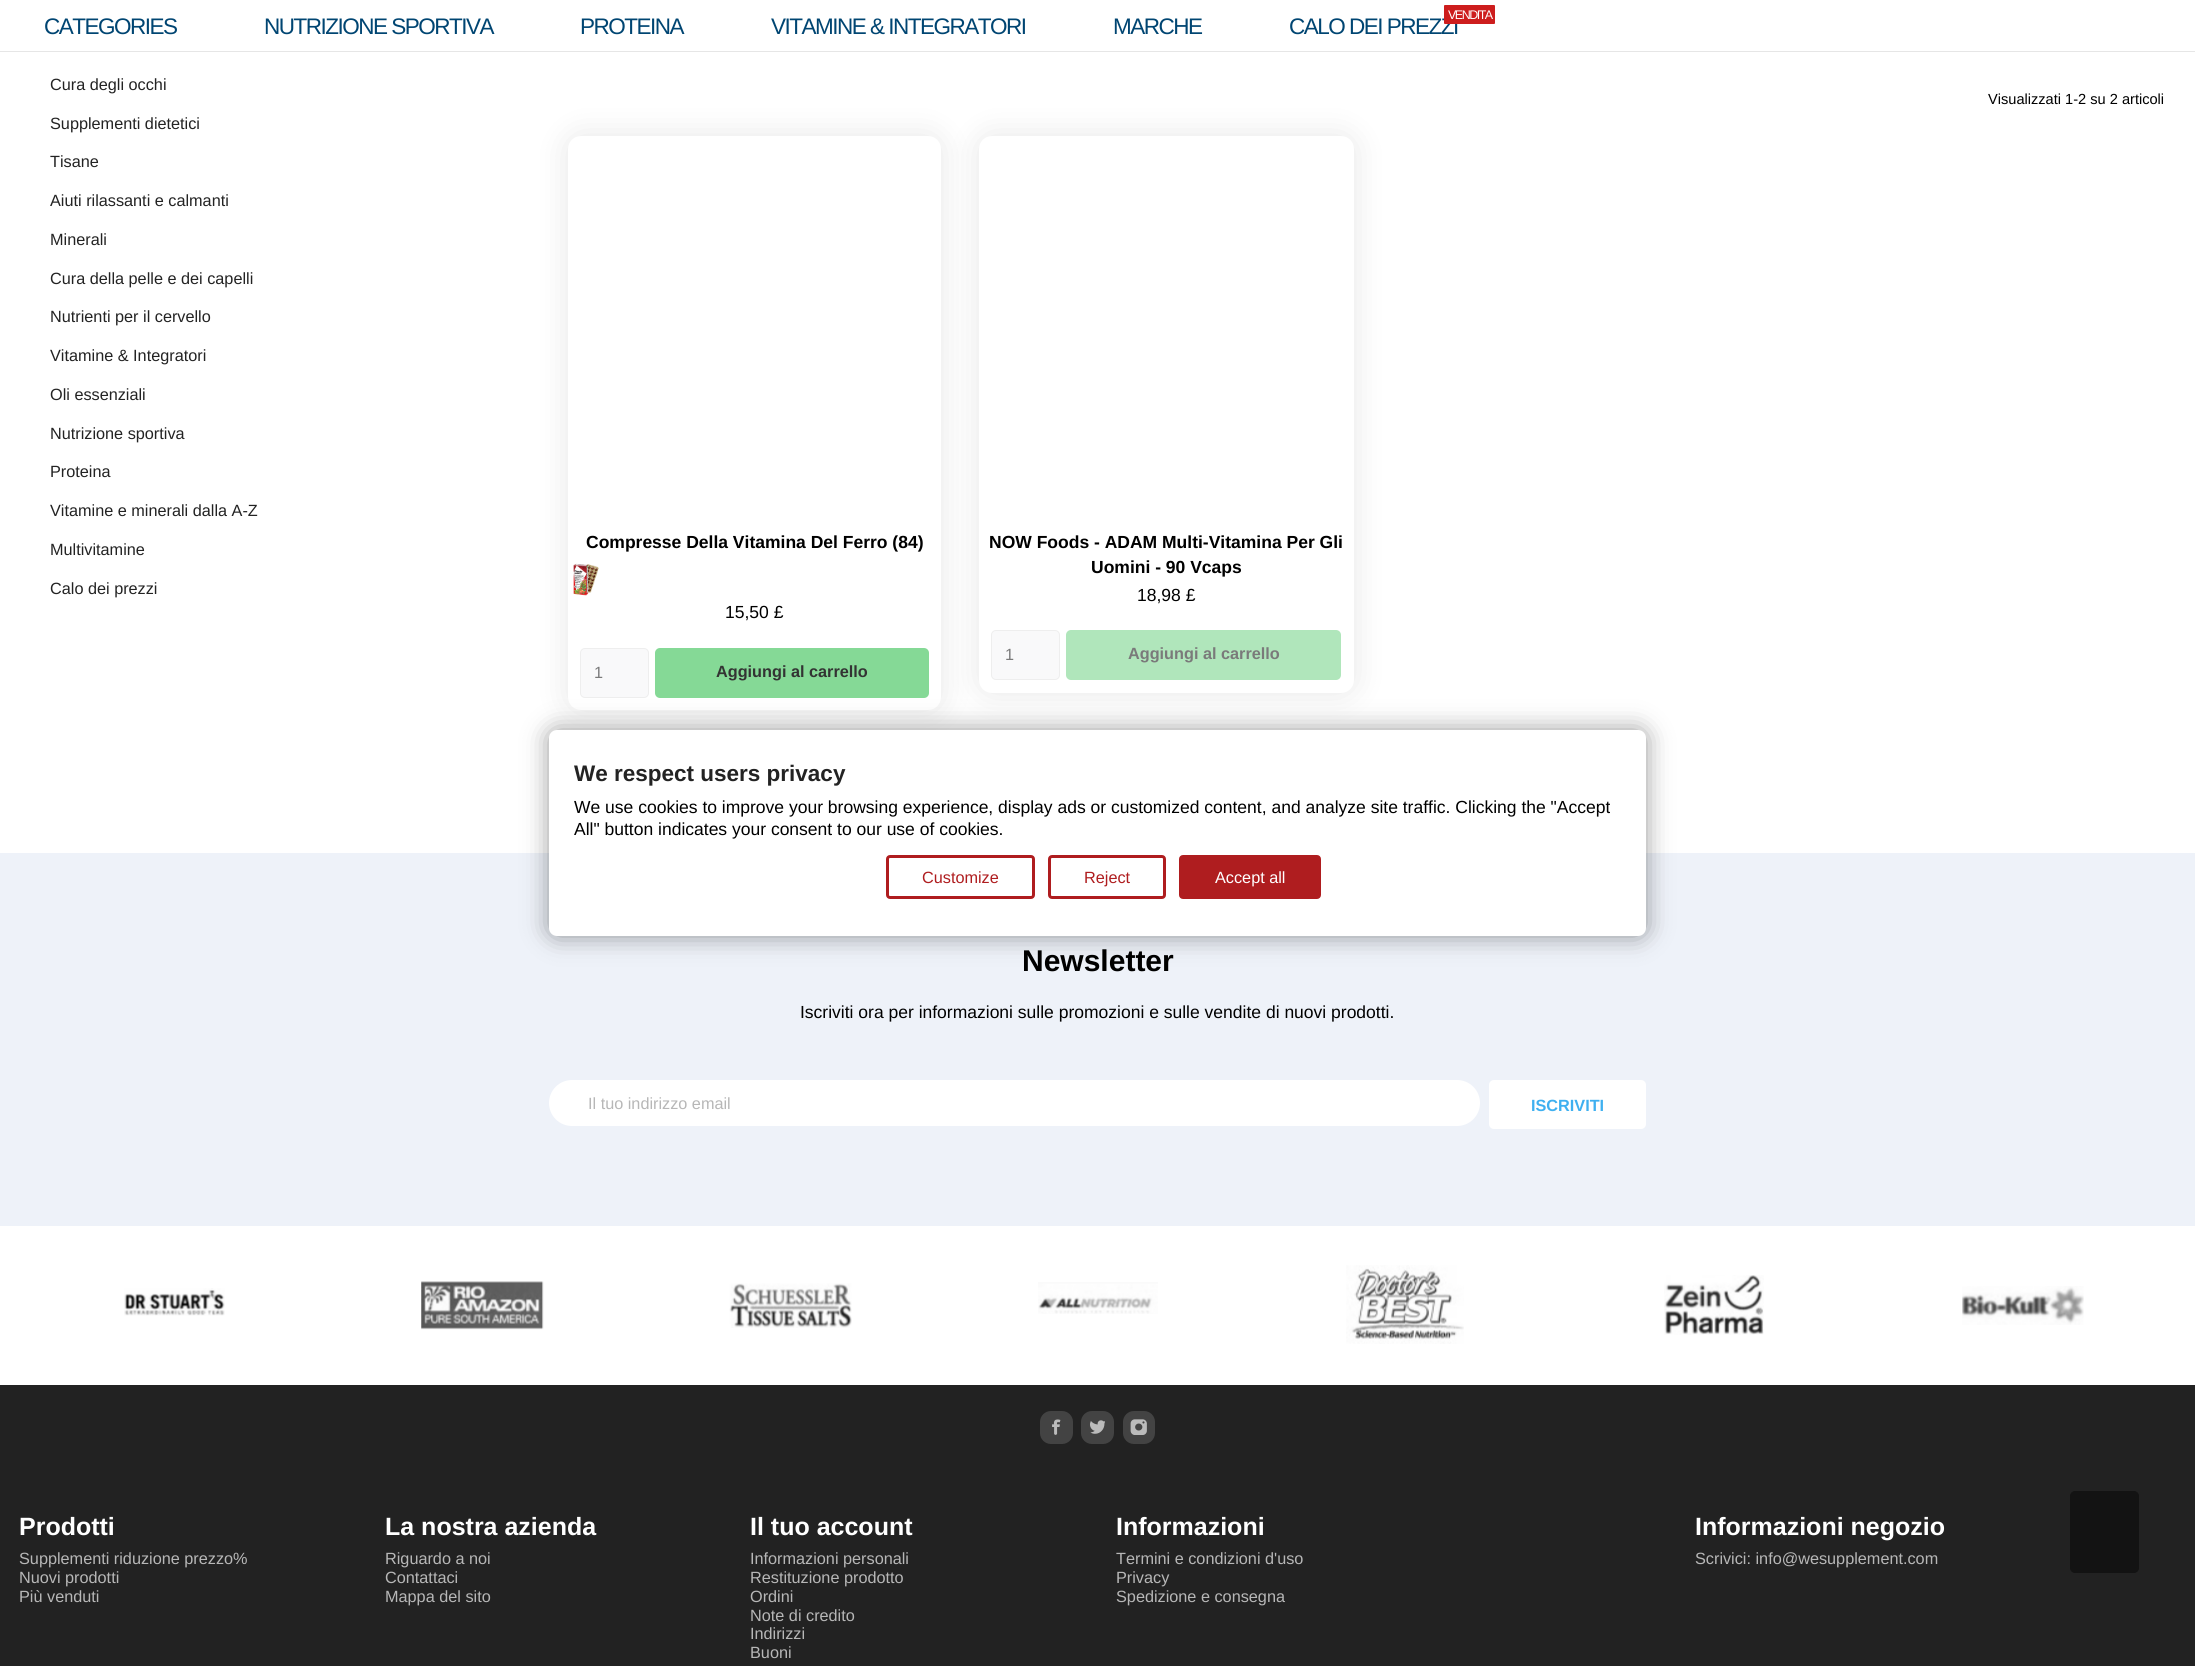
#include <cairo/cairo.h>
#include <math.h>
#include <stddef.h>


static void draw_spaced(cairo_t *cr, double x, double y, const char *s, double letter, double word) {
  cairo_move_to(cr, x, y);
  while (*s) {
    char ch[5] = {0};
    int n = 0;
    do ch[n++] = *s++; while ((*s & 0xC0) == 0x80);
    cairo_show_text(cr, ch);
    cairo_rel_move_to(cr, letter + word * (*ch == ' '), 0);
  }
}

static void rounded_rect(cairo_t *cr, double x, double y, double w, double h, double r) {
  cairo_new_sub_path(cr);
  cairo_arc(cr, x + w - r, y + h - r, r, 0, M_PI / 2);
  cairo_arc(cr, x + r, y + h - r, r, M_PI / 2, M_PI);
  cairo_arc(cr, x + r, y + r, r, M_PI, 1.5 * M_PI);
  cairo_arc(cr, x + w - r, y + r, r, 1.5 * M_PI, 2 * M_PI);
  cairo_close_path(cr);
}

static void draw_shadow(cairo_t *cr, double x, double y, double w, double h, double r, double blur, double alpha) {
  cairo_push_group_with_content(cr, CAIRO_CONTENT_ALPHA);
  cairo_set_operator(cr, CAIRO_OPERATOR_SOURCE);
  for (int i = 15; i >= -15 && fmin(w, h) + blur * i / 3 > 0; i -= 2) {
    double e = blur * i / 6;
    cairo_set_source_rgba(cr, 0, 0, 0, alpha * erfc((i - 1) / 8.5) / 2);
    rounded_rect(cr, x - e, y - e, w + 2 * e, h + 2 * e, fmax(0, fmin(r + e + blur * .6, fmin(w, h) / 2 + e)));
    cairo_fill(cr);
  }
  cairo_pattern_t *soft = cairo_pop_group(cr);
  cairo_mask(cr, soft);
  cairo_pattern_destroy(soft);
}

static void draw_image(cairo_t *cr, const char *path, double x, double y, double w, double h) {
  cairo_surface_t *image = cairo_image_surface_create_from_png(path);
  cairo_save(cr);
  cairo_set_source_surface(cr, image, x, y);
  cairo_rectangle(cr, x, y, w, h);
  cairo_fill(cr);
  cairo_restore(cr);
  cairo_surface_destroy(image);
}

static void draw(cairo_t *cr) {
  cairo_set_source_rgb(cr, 1, 1, 1);
  cairo_paint(cr);
  cairo_set_source_rgb(cr, 230 / 255.0, 230 / 255.0, 230 / 255.0);
  cairo_rectangle(cr, 0, 51, 2195, 1);
  cairo_fill(cr);
  cairo_set_source_rgb(cr, 0, 0, 0);
  draw_shadow(cr, 568, 136, 373, 574, 13, 15.5, 0.1);
  cairo_set_source_rgb(cr, 1, 1, 1);
  rounded_rect(cr, 568, 136, 373, 574, 13);
  cairo_fill(cr);
  draw_image(cr, "images/1.png", 573, 563, 26, 33);
  cairo_set_source_rgb(cr, 249 / 255.0, 249 / 255.0, 250 / 255.0);
  rounded_rect(cr, 580.5, 648.5, 68, 49, 4.5);
  cairo_fill_preserve(cr);
  cairo_set_source_rgb(cr, 238 / 255.0, 238 / 255.0, 238 / 255.0);
  cairo_set_line_width(cr, 1);
  cairo_stroke(cr);
  cairo_set_source_rgb(cr, 133 / 255.0, 217 / 255.0, 150 / 255.0);
  rounded_rect(cr, 655, 648, 274, 50, 5);
  cairo_fill(cr);
  cairo_set_source_rgb(cr, 0, 0, 0);
  draw_shadow(cr, 979, 136, 375, 557, 13, 15.5, 0.1);
  cairo_set_source_rgb(cr, 1, 1, 1);
  rounded_rect(cr, 979, 136, 375, 557, 13);
  cairo_fill(cr);
  cairo_set_source_rgb(cr, 249 / 255.0, 249 / 255.0, 250 / 255.0);
  rounded_rect(cr, 991.5, 630.5, 68, 49, 4.5);
  cairo_fill_preserve(cr);
  cairo_set_source_rgb(cr, 238 / 255.0, 238 / 255.0, 238 / 255.0);
  cairo_stroke(cr);
  cairo_set_source_rgb(cr, 176 / 255.0, 230 / 255.0, 187 / 255.0);
  rounded_rect(cr, 1066, 630, 275, 50, 5);
  cairo_fill(cr);
  cairo_set_source_rgb(cr, 238 / 255.0, 242 / 255.0, 249 / 255.0);
  cairo_rectangle(cr, 0, 853, 2195, 373);
  cairo_fill(cr);
  cairo_set_source_rgb(cr, 1, 1, 1);
  rounded_rect(cr, 549, 1080, 931, 46, 23);
  cairo_fill(cr);
  rounded_rect(cr, 1489, 1080, 157, 49, 5);
  cairo_fill(cr);
  draw_image(cr, "images/2.png", 124, 1288, 101, 28);
  draw_image(cr, "images/3.png", 421, 1281, 123, 49);
  draw_image(cr, "images/4.png", 729, 1283, 123, 45);
  draw_image(cr, "images/5.png", 1038, 1282, 120, 32);
  draw_image(cr, "images/6.png", 1346, 1265, 118, 79);
  draw_image(cr, "images/7.png", 1664, 1275, 100, 60);
  draw_image(cr, "images/8.png", 1962, 1286, 122, 39);
  cairo_set_source_rgb(cr, 34 / 255.0, 34 / 255.0, 34 / 255.0);
  cairo_rectangle(cr, 0, 1385, 2195, 281);
  cairo_fill(cr);
  cairo_set_source_rgb(cr, 67 / 255.0, 67 / 255.0, 67 / 255.0);
  rounded_rect(cr, 1040, 1411, 33, 33, 11);
  cairo_fill(cr);
  draw_image(cr, "images/9.png", 1052, 1419, 9, 16);
  rounded_rect(cr, 1081, 1411, 33, 33, 11);
  cairo_fill(cr);
  draw_image(cr, "images/10.png", 1090, 1420, 15, 14);
  rounded_rect(cr, 1123, 1411, 32, 33, 11);
  cairo_fill(cr);
  draw_image(cr, "images/11.png", 1130, 1419, 17, 16);
  cairo_set_source_rgb(cr, 19 / 255.0, 19 / 255.0, 19 / 255.0);
  rounded_rect(cr, 2070.5, 1491.5, 68, 81, 4.5);
  cairo_fill_preserve(cr);
  cairo_stroke(cr);
  cairo_set_source_rgb(cr, 0, 0, 0);
  draw_shadow(cr, 549, 730, 1097, 206, 8, 12.5, 0.4);
  cairo_set_source_rgb(cr, 1, 1, 1);
  rounded_rect(cr, 549, 730, 1097, 206, 8);
  cairo_fill(cr);
  rounded_rect(cr, 887.5, 856.5, 146, 41, 2.5);
  cairo_set_source_rgb(cr, 175 / 255.0, 29 / 255.0, 31 / 255.0);
  cairo_set_line_width(cr, 3);
  cairo_stroke(cr);
  rounded_rect(cr, 1049.5, 856.5, 115, 41, 2.5);
  cairo_stroke(cr);
  rounded_rect(cr, 1180.5, 856.5, 139, 41, 2.5);
  cairo_fill_preserve(cr);
  cairo_stroke(cr);
  cairo_select_font_face(cr, "Arimo", CAIRO_FONT_SLANT_NORMAL, CAIRO_FONT_WEIGHT_NORMAL);
  cairo_set_font_size(cr, 22.5);
  cairo_set_source_rgb(cr, 0, 69 / 255.0, 114 / 255.0);
  draw_spaced(cr, 44, 34, "CATEGORIES", -1.5, 0);
  draw_spaced(cr, 264, 34, "NUTRIZIONE SPORTIVA", -1.5, 0);
  draw_spaced(cr, 580, 34, "PROTEINA", -1.5, 0);
  draw_spaced(cr, 771, 34, "VITAMINE & INTEGRATORI", -1.5, 0);
  draw_spaced(cr, 1113, 34, "MARCHE", -1.5, 0);
  draw_spaced(cr, 1289, 34, "CALO DEI PREZZI", -1.5, 0);
  cairo_set_source_rgb(cr, 205 / 255.0, 29 / 255.0, 29 / 255.0);
  rounded_rect(cr, 1444, 5, 51, 19, 1);
  cairo_fill(cr);
  cairo_set_font_size(cr, 12.5);
  cairo_set_source_rgb(cr, 1, 1, 1);
  draw_spaced(cr, 1448, 19, "VENDITA", -1.5, 0);
  cairo_set_font_size(cr, 16.25);
  cairo_set_source_rgb(cr, 35 / 255.0, 35 / 255.0, 35 / 255.0);
  cairo_move_to(cr, 50, 90);
  cairo_show_text(cr, "Cura degli occhi");
  cairo_move_to(cr, 50, 129);
  cairo_show_text(cr, "Supplementi dietetici");
  cairo_move_to(cr, 50, 167);
  cairo_show_text(cr, "Tisane");
  cairo_move_to(cr, 50, 206);
  cairo_show_text(cr, "Aiuti rilassanti e calmanti");
  cairo_move_to(cr, 50, 245);
  cairo_show_text(cr, "Minerali");
  cairo_move_to(cr, 50, 284);
  cairo_show_text(cr, "Cura della pelle e dei capelli");
  cairo_move_to(cr, 50, 322);
  cairo_show_text(cr, "Nutrienti per il cervello");
  cairo_move_to(cr, 50, 361);
  cairo_show_text(cr, "Vitamine & Integratori");
  cairo_move_to(cr, 50, 400);
  cairo_show_text(cr, "Oli essenziali");
  cairo_move_to(cr, 50, 439);
  cairo_show_text(cr, "Nutrizione sportiva");
  cairo_move_to(cr, 50, 477);
  cairo_show_text(cr, "Proteina");
  cairo_move_to(cr, 50, 516);
  cairo_show_text(cr, "Vitamine e minerali dalla A-Z");
  cairo_move_to(cr, 50, 555);
  cairo_show_text(cr, "Multivitamine");
  cairo_move_to(cr, 50, 594);
  cairo_show_text(cr, "Calo dei prezzi");
  cairo_set_font_size(cr, 14.6);
  cairo_set_source_rgb(cr, 0, 0, 0);
  cairo_move_to(cr, 1988, 104);
  cairo_show_text(cr, "Visualizzati 1-2 su 2 articoli");
  cairo_select_font_face(cr, "Arimo", CAIRO_FONT_SLANT_NORMAL, CAIRO_FONT_WEIGHT_BOLD);
  cairo_set_font_size(cr, 17.5);
  cairo_move_to(cr, 586, 548);
  cairo_show_text(cr, "Compresse Della Vitamina Del Ferro (84)");
  cairo_select_font_face(cr, "Arimo", CAIRO_FONT_SLANT_NORMAL, CAIRO_FONT_WEIGHT_NORMAL);
  cairo_move_to(cr, 725, 618);
  cairo_show_text(cr, "15,50 £");
  cairo_set_font_size(cr, 16.25);
  cairo_set_source_rgb(cr, 122 / 255.0, 122 / 255.0, 122 / 255.0);
  cairo_move_to(cr, 594, 678);
  cairo_show_text(cr, "1");
  cairo_select_font_face(cr, "Arimo", CAIRO_FONT_SLANT_NORMAL, CAIRO_FONT_WEIGHT_BOLD);
  cairo_set_source_rgb(cr, 51 / 255.0, 51 / 255.0, 51 / 255.0);
  cairo_move_to(cr, 716, 677);
  cairo_show_text(cr, "Aggiungi al carrello");
  cairo_set_font_size(cr, 17.5);
  cairo_set_source_rgb(cr, 0, 0, 0);
  cairo_move_to(cr, 989, 548);
  cairo_show_text(cr, "NOW Foods - ADAM Multi-Vitamina Per Gli");
  cairo_move_to(cr, 1091, 573);
  cairo_show_text(cr, "Uomini - 90 Vcaps");
  cairo_select_font_face(cr, "Arimo", CAIRO_FONT_SLANT_NORMAL, CAIRO_FONT_WEIGHT_NORMAL);
  cairo_move_to(cr, 1137, 601);
  cairo_show_text(cr, "18,98 £");
  cairo_set_font_size(cr, 16.25);
  cairo_set_source_rgb(cr, 122 / 255.0, 122 / 255.0, 122 / 255.0);
  cairo_move_to(cr, 1005, 660);
  cairo_show_text(cr, "1");
  cairo_select_font_face(cr, "Arimo", CAIRO_FONT_SLANT_NORMAL, CAIRO_FONT_WEIGHT_BOLD);
  cairo_move_to(cr, 1128, 659);
  cairo_show_text(cr, "Aggiungi al carrello");
  cairo_set_font_size(cr, 30);
  cairo_set_source_rgb(cr, 0, 0, 0);
  cairo_move_to(cr, 1022, 971);
  cairo_show_text(cr, "Newsletter");
  cairo_select_font_face(cr, "Arimo", CAIRO_FONT_SLANT_NORMAL, CAIRO_FONT_WEIGHT_NORMAL);
  cairo_set_font_size(cr, 17.5);
  cairo_move_to(cr, 800, 1018);
  cairo_show_text(cr, "Iscriviti ora per informazioni sulle promozioni e sulle vendite di nuovi prodotti.");
  cairo_set_font_size(cr, 16.25);
  cairo_set_source_rgb(cr, 183 / 255.0, 183 / 255.0, 183 / 255.0);
  cairo_move_to(cr, 588, 1109);
  cairo_show_text(cr, "Il tuo indirizzo email");
  cairo_select_font_face(cr, "Arimo", CAIRO_FONT_SLANT_NORMAL, CAIRO_FONT_WEIGHT_BOLD);
  cairo_set_source_rgb(cr, 63 / 255.0, 176 / 255.0, 240 / 255.0);
  cairo_move_to(cr, 1531, 1111);
  cairo_show_text(cr, "ISCRIVITI");
  cairo_set_font_size(cr, 25);
  cairo_set_source_rgb(cr, 1, 1, 1);
  cairo_move_to(cr, 19, 1535);
  cairo_show_text(cr, "Prodotti");
  cairo_select_font_face(cr, "Arimo", CAIRO_FONT_SLANT_NORMAL, CAIRO_FONT_WEIGHT_NORMAL);
  cairo_set_font_size(cr, 16.25);
  cairo_set_source_rgb(cr, 183 / 255.0, 183 / 255.0, 183 / 255.0);
  cairo_move_to(cr, 19, 1564);
  cairo_show_text(cr, "Supplementi riduzione prezzo%");
  cairo_move_to(cr, 19, 1583);
  cairo_show_text(cr, "Nuovi prodotti");
  cairo_move_to(cr, 19, 1602);
  cairo_show_text(cr, "Più venduti");
  cairo_select_font_face(cr, "Arimo", CAIRO_FONT_SLANT_NORMAL, CAIRO_FONT_WEIGHT_BOLD);
  cairo_set_font_size(cr, 25);
  cairo_set_source_rgb(cr, 1, 1, 1);
  cairo_move_to(cr, 385, 1535);
  cairo_show_text(cr, "La nostra azienda");
  cairo_select_font_face(cr, "Arimo", CAIRO_FONT_SLANT_NORMAL, CAIRO_FONT_WEIGHT_NORMAL);
  cairo_set_font_size(cr, 16.25);
  cairo_set_source_rgb(cr, 183 / 255.0, 183 / 255.0, 183 / 255.0);
  cairo_move_to(cr, 385, 1564);
  cairo_show_text(cr, "Riguardo a noi");
  cairo_move_to(cr, 385, 1583);
  cairo_show_text(cr, "Contattaci");
  cairo_move_to(cr, 385, 1602);
  cairo_show_text(cr, "Mappa del sito");
  cairo_select_font_face(cr, "Arimo", CAIRO_FONT_SLANT_NORMAL, CAIRO_FONT_WEIGHT_BOLD);
  cairo_set_font_size(cr, 25);
  cairo_set_source_rgb(cr, 1, 1, 1);
  cairo_move_to(cr, 750, 1535);
  cairo_show_text(cr, "Il tuo account");
  cairo_select_font_face(cr, "Arimo", CAIRO_FONT_SLANT_NORMAL, CAIRO_FONT_WEIGHT_NORMAL);
  cairo_set_font_size(cr, 16.25);
  cairo_set_source_rgb(cr, 183 / 255.0, 183 / 255.0, 183 / 255.0);
  cairo_move_to(cr, 750, 1564);
  cairo_show_text(cr, "Informazioni personali");
  cairo_move_to(cr, 750, 1583);
  cairo_show_text(cr, "Restituzione prodotto");
  cairo_move_to(cr, 750, 1602);
  cairo_show_text(cr, "Ordini");
  cairo_move_to(cr, 750, 1621);
  cairo_show_text(cr, "Note di credito");
  cairo_move_to(cr, 750, 1639);
  cairo_show_text(cr, "Indirizzi");
  cairo_move_to(cr, 750, 1658);
  cairo_show_text(cr, "Buoni");
  cairo_select_font_face(cr, "Arimo", CAIRO_FONT_SLANT_NORMAL, CAIRO_FONT_WEIGHT_BOLD);
  cairo_set_font_size(cr, 25);
  cairo_set_source_rgb(cr, 1, 1, 1);
  cairo_move_to(cr, 1116, 1535);
  cairo_show_text(cr, "Informazioni");
  cairo_select_font_face(cr, "Arimo", CAIRO_FONT_SLANT_NORMAL, CAIRO_FONT_WEIGHT_NORMAL);
  cairo_set_font_size(cr, 16.25);
  cairo_set_source_rgb(cr, 183 / 255.0, 183 / 255.0, 183 / 255.0);
  cairo_move_to(cr, 1116, 1564);
  cairo_show_text(cr, "Termini e condizioni d'uso");
  cairo_move_to(cr, 1116, 1583);
  cairo_show_text(cr, "Privacy");
  cairo_move_to(cr, 1116, 1602);
  cairo_show_text(cr, "Spedizione e consegna");
  cairo_select_font_face(cr, "Arimo", CAIRO_FONT_SLANT_NORMAL, CAIRO_FONT_WEIGHT_BOLD);
  cairo_set_font_size(cr, 25);
  cairo_set_source_rgb(cr, 1, 1, 1);
  cairo_move_to(cr, 1695, 1535);
  cairo_show_text(cr, "Informazioni negozio");
  cairo_select_font_face(cr, "Arimo", CAIRO_FONT_SLANT_NORMAL, CAIRO_FONT_WEIGHT_NORMAL);
  cairo_set_font_size(cr, 16.25);
  cairo_set_source_rgb(cr, 183 / 255.0, 183 / 255.0, 183 / 255.0);
  cairo_move_to(cr, 1695, 1564);
  cairo_show_text(cr, "Scrivici: info@wesupplement.com");
  cairo_select_font_face(cr, "Arimo", CAIRO_FONT_SLANT_NORMAL, CAIRO_FONT_WEIGHT_BOLD);
  cairo_set_font_size(cr, 22.5);
  cairo_set_source_rgb(cr, 35 / 255.0, 35 / 255.0, 35 / 255.0);
  cairo_move_to(cr, 574, 781);
  cairo_show_text(cr, "We respect users privacy");
  cairo_select_font_face(cr, "Arimo", CAIRO_FONT_SLANT_NORMAL, CAIRO_FONT_WEIGHT_NORMAL);
  cairo_set_font_size(cr, 17.5);
  cairo_set_source_rgb(cr, 0, 0, 0);
  cairo_move_to(cr, 574, 813);
  cairo_show_text(cr, "We use cookies to improve your browsing experience, display ads or customized content, and analyze site traffic. Clicking the \"Accept");
  cairo_move_to(cr, 574, 835);
  cairo_show_text(cr, "All\" button indicates your consent to our use of cookies.");
  cairo_set_font_size(cr, 16.25);
  cairo_set_source_rgb(cr, 175 / 255.0, 29 / 255.0, 31 / 255.0);
  cairo_move_to(cr, 922, 883);
  cairo_show_text(cr, "Customize");
  cairo_move_to(cr, 1084, 883);
  cairo_show_text(cr, "Reject");
  cairo_set_source_rgb(cr, 1, 1, 1);
  cairo_move_to(cr, 1215, 883);
  cairo_show_text(cr, "Accept all");
}

int main(void) {
  cairo_surface_t *surface = cairo_image_surface_create(CAIRO_FORMAT_RGB24, 2195, 1666);
  cairo_t *cr = cairo_create(surface);
  cairo_font_options_t *options = cairo_font_options_create();
  cairo_font_options_set_hint_metrics(options, CAIRO_HINT_METRICS_OFF);
  cairo_font_options_set_hint_style(options, CAIRO_HINT_STYLE_NONE);
  cairo_set_font_options(cr, options);
  cairo_set_miter_limit(cr, 4);
  draw(cr);
  cairo_surface_write_to_png(surface, "out.png");
  cairo_font_options_destroy(options);
  cairo_destroy(cr);
  cairo_surface_destroy(surface);
  return 0;
}
